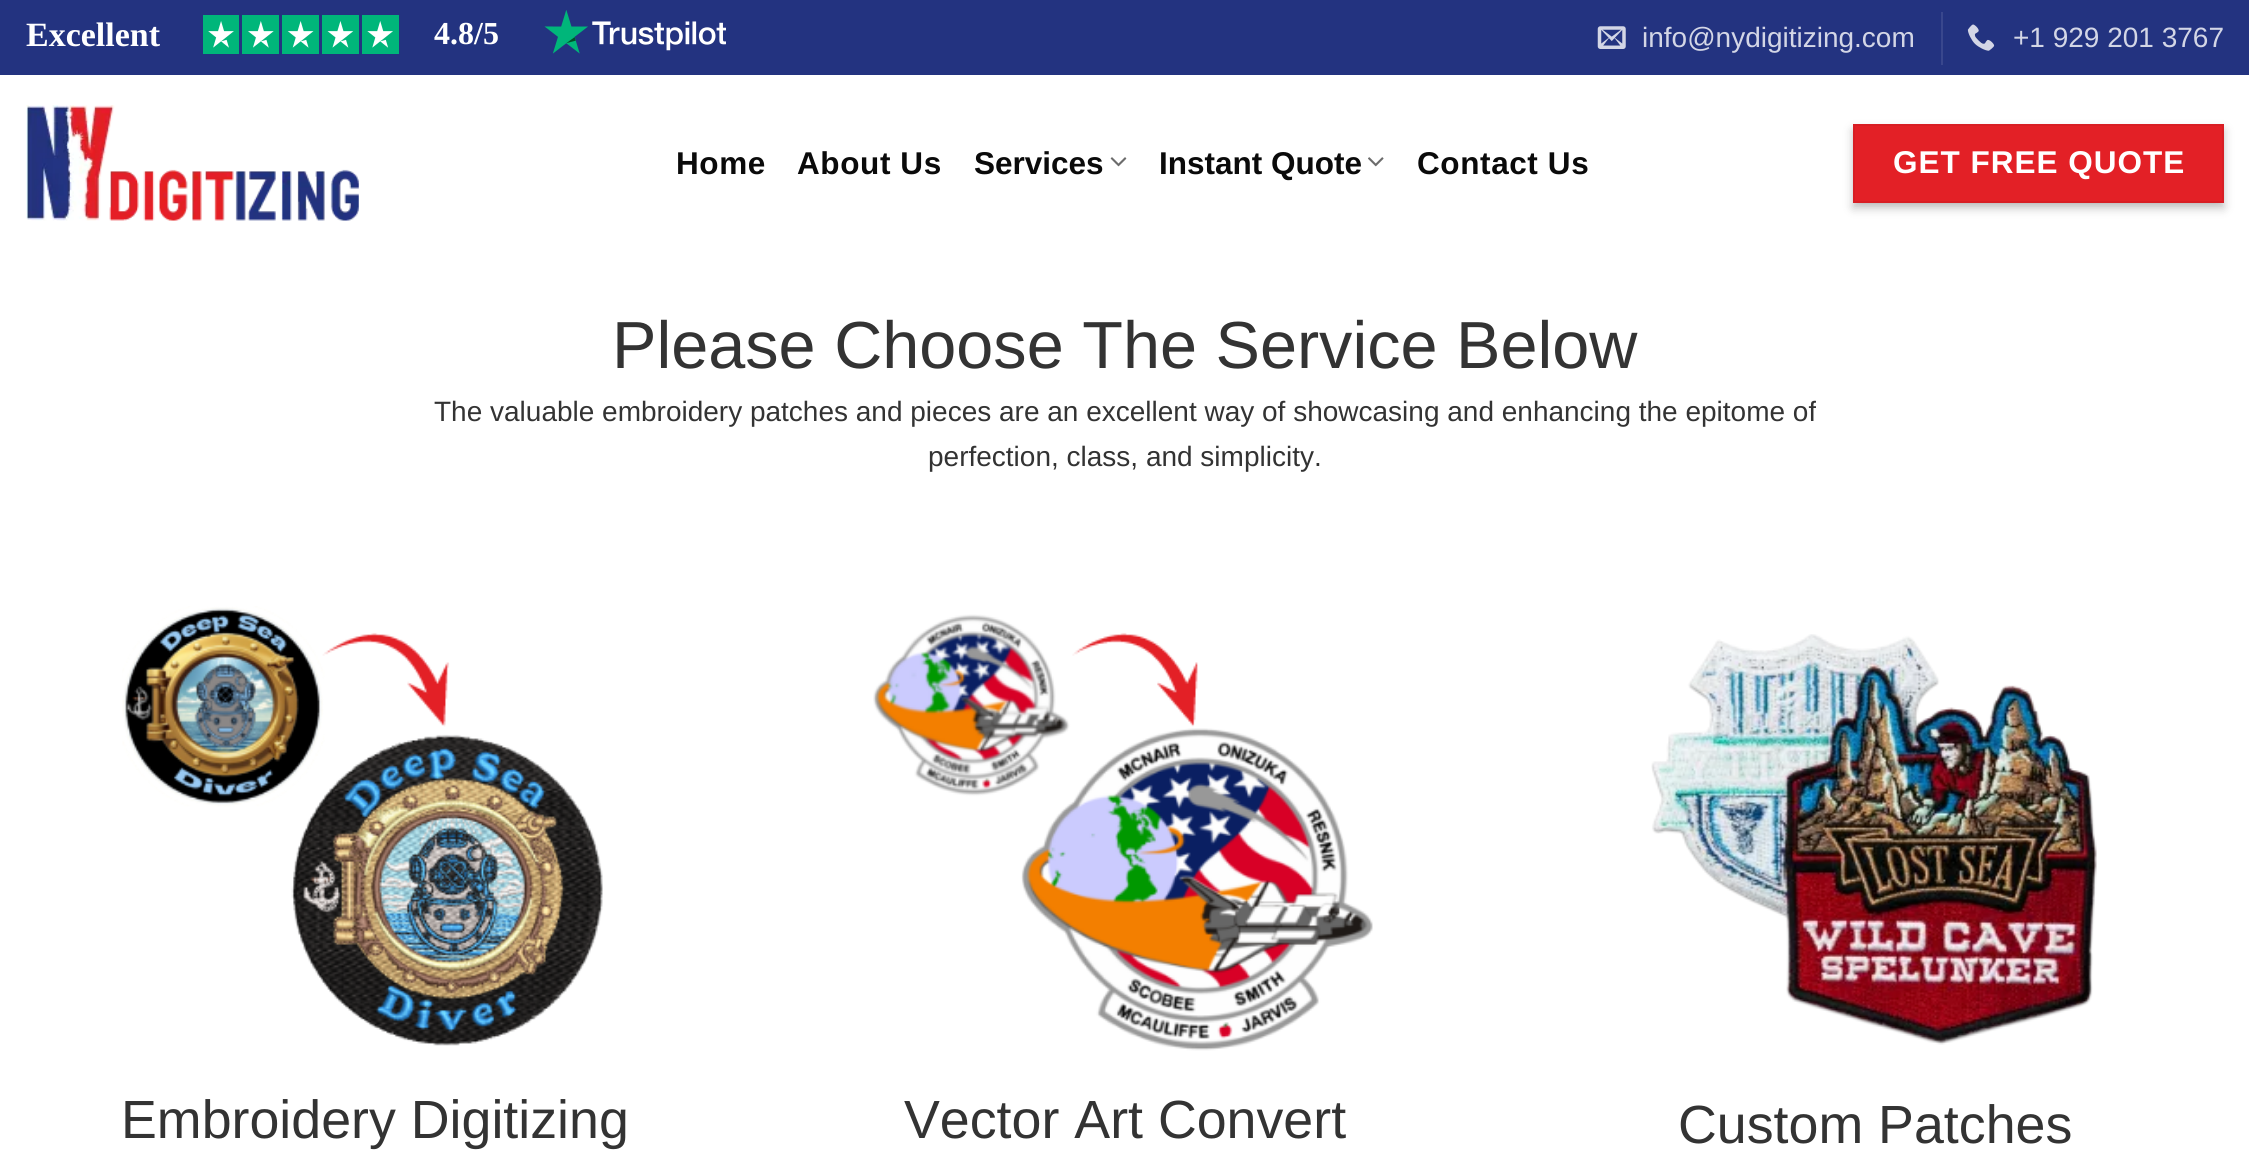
#include <cairo/cairo.h>
#include <math.h>
#include <stddef.h>


static void draw_spaced(cairo_t *cr, double x, double y, const char *s, double letter, double word) {
  cairo_move_to(cr, x, y);
  while (*s) {
    char ch[5] = {0};
    int n = 0;
    do ch[n++] = *s++; while ((*s & 0xC0) == 0x80);
    cairo_show_text(cr, ch);
    cairo_rel_move_to(cr, letter + word * (*ch == ' '), 0);
  }
}

static void rounded_rect(cairo_t *cr, double x, double y, double w, double h, double r) {
  cairo_new_sub_path(cr);
  cairo_arc(cr, x + w - r, y + h - r, r, 0, M_PI / 2);
  cairo_arc(cr, x + r, y + h - r, r, M_PI / 2, M_PI);
  cairo_arc(cr, x + r, y + r, r, M_PI, 1.5 * M_PI);
  cairo_arc(cr, x + w - r, y + r, r, 1.5 * M_PI, 2 * M_PI);
  cairo_close_path(cr);
}

static void draw_shadow(cairo_t *cr, double x, double y, double w, double h, double r, double blur, double alpha) {
  cairo_push_group_with_content(cr, CAIRO_CONTENT_ALPHA);
  cairo_set_operator(cr, CAIRO_OPERATOR_SOURCE);
  for (int i = 15; i >= -15 && fmin(w, h) + blur * i / 3 > 0; i -= 2) {
    double e = blur * i / 6;
    cairo_set_source_rgba(cr, 0, 0, 0, alpha * erfc((i - 1) / 8.5) / 2);
    rounded_rect(cr, x - e, y - e, w + 2 * e, h + 2 * e, fmax(0, fmin(r + e + blur * .6, fmin(w, h) / 2 + e)));
    cairo_fill(cr);
  }
  cairo_pattern_t *soft = cairo_pop_group(cr);
  cairo_mask(cr, soft);
  cairo_pattern_destroy(soft);
}

static void draw_image(cairo_t *cr, const char *path, double x, double y, double w, double h) {
  cairo_surface_t *image = cairo_image_surface_create_from_png(path);
  cairo_save(cr);
  cairo_set_source_surface(cr, image, x, y);
  cairo_rectangle(cr, x, y, w, h);
  cairo_fill(cr);
  cairo_restore(cr);
  cairo_surface_destroy(image);
}

static void draw(cairo_t *cr) {
  cairo_set_source_rgb(cr, 1, 1, 1);
  cairo_paint(cr);
  cairo_set_source_rgb(cr, 35 / 255.0, 51 / 255.0, 128 / 255.0);
  cairo_rectangle(cr, 0, 0, 2249, 75);
  cairo_fill(cr);
  draw_image(cr, "images/1.png", 203, 10, 523, 44);
  draw_image(cr, "images/2.png", 1597, 26, 29, 23);
  cairo_set_source_rgb(cr, 57 / 255.0, 71 / 255.0, 141 / 255.0);
  cairo_rectangle(cr, 1941, 12, 2, 53);
  cairo_fill(cr);
  draw_image(cr, "images/3.png", 1967, 24, 28, 27);
  draw_image(cr, "images/4.png", 26, 105, 333, 116);
  draw_image(cr, "images/5.png", 1110, 157, 17, 10);
  draw_image(cr, "images/6.png", 1368, 157, 16, 10);
  cairo_set_source_rgb(cr, 0, 0, 0);
  draw_shadow(cr, 1853, 130, 371, 78, 0, 5, 0.23);
  draw_shadow(cr, 1860, 137, 357, 64, 0, 5, 0.16);
  cairo_set_source_rgb(cr, 227 / 255.0, 32 / 255.0, 38 / 255.0);
  cairo_rectangle(cr, 1854, 125, 369, 77);
  cairo_fill_preserve(cr);
  cairo_set_source_rgb(cr, 216 / 255.0, 30 / 255.0, 36 / 255.0);
  cairo_stroke(cr);
  draw_image(cr, "images/7.png", 122, 606, 481, 440);
  draw_image(cr, "images/8.png", 873, 614, 500, 437);
  draw_image(cr, "images/9.png", 1651, 634, 446, 411);
  cairo_select_font_face(cr, "Liberation Serif", CAIRO_FONT_SLANT_NORMAL, CAIRO_FONT_WEIGHT_BOLD);
  cairo_set_font_size(cr, 34);
  cairo_set_source_rgb(cr, 1, 1, 1);
  cairo_move_to(cr, 26, 46);
  cairo_show_text(cr, "Excellent");
  cairo_set_font_size(cr, 32);
  cairo_move_to(cr, 434, 44);
  cairo_show_text(cr, "4.8/5");
  cairo_select_font_face(cr, "Liberation Sans", CAIRO_FONT_SLANT_NORMAL, CAIRO_FONT_WEIGHT_NORMAL);
  cairo_set_font_size(cr, 28);
  cairo_set_source_rgb(cr, 211 / 255.0, 214 / 255.0, 230 / 255.0);
  cairo_move_to(cr, 1642, 47);
  cairo_show_text(cr, "info@nydigitizing.com");
  cairo_move_to(cr, 2013, 47);
  cairo_show_text(cr, "+1 929 201 3767");
  cairo_select_font_face(cr, "Liberation Sans", CAIRO_FONT_SLANT_NORMAL, CAIRO_FONT_WEIGHT_BOLD);
  cairo_set_font_size(cr, 31.5);
  cairo_set_source_rgb(cr, 10 / 255.0, 10 / 255.0, 10 / 255.0);
  draw_spaced(cr, 676, 174, "Home", 0.6, 0);
  draw_spaced(cr, 797, 174, "About Us", 0.6, 0);
  cairo_move_to(cr, 974, 174);
  cairo_show_text(cr, "Services");
  cairo_move_to(cr, 1159, 174);
  cairo_show_text(cr, "Instant Quote");
  draw_spaced(cr, 1417, 174, "Contact Us", 0.6, 0);
  cairo_set_source_rgb(cr, 1, 1, 1);
  draw_spaced(cr, 1893, 173, "GET FREE QUOTE", 1, 0);
  cairo_select_font_face(cr, "Liberation Sans", CAIRO_FONT_SLANT_NORMAL, CAIRO_FONT_WEIGHT_NORMAL);
  cairo_set_font_size(cr, 66.6);
  cairo_set_source_rgb(cr, 51 / 255.0, 51 / 255.0, 51 / 255.0);
  cairo_move_to(cr, 612, 368);
  cairo_show_text(cr, "Please Choose The Service Below");
  cairo_set_font_size(cr, 28);
  cairo_move_to(cr, 434, 421);
  cairo_show_text(cr, "The valuable embroidery patches and pieces are an excellent way of showcasing and enhancing the epitome of");
  cairo_move_to(cr, 928, 466);
  cairo_show_text(cr, "perfection, class, and simplicity.");
  cairo_set_font_size(cr, 53.75);
  cairo_move_to(cr, 121, 1138);
  cairo_show_text(cr, "Embroidery Digitizing");
  cairo_move_to(cr, 904, 1138);
  cairo_show_text(cr, "Vector Art Convert");
  cairo_move_to(cr, 1678, 1143);
  cairo_show_text(cr, "Custom Patches");
}

int main(void) {
  cairo_surface_t *surface = cairo_image_surface_create(CAIRO_FORMAT_RGB24, 2249, 1151);
  cairo_t *cr = cairo_create(surface);
  cairo_font_options_t *options = cairo_font_options_create();
  cairo_font_options_set_hint_metrics(options, CAIRO_HINT_METRICS_OFF);
  cairo_font_options_set_hint_style(options, CAIRO_HINT_STYLE_NONE);
  cairo_set_font_options(cr, options);
  cairo_set_miter_limit(cr, 4);
  draw(cr);
  cairo_surface_write_to_png(surface, "out.png");
  cairo_font_options_destroy(options);
  cairo_destroy(cr);
  cairo_surface_destroy(surface);
  return 0;
}
